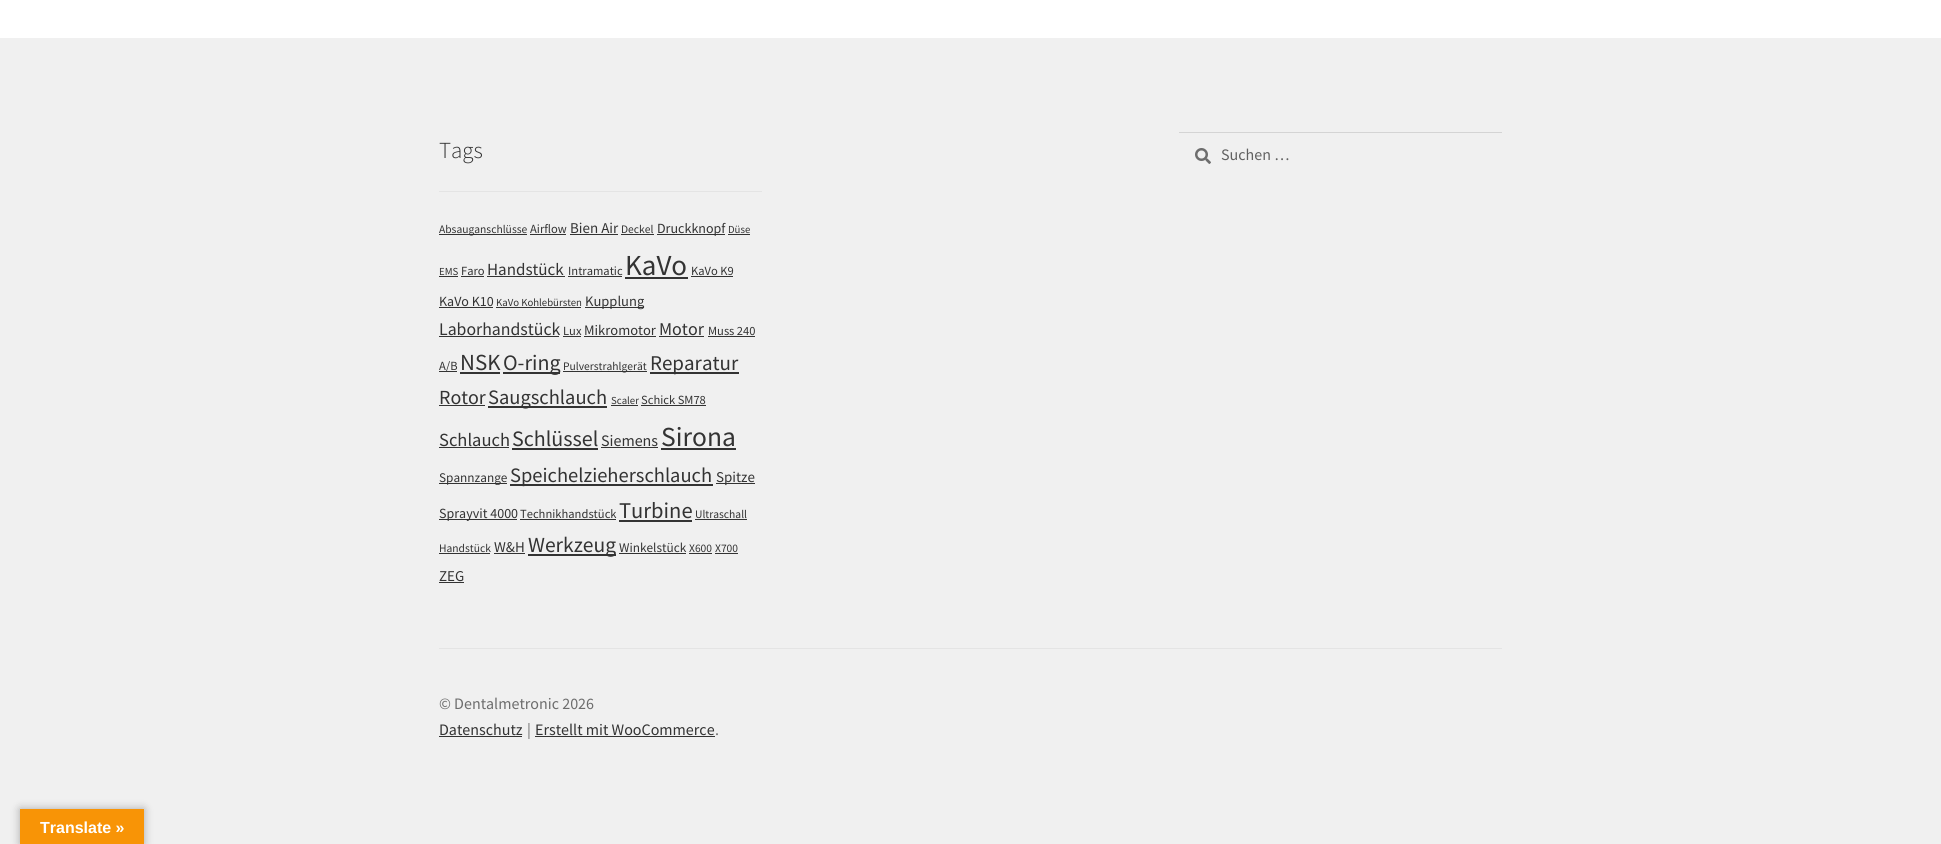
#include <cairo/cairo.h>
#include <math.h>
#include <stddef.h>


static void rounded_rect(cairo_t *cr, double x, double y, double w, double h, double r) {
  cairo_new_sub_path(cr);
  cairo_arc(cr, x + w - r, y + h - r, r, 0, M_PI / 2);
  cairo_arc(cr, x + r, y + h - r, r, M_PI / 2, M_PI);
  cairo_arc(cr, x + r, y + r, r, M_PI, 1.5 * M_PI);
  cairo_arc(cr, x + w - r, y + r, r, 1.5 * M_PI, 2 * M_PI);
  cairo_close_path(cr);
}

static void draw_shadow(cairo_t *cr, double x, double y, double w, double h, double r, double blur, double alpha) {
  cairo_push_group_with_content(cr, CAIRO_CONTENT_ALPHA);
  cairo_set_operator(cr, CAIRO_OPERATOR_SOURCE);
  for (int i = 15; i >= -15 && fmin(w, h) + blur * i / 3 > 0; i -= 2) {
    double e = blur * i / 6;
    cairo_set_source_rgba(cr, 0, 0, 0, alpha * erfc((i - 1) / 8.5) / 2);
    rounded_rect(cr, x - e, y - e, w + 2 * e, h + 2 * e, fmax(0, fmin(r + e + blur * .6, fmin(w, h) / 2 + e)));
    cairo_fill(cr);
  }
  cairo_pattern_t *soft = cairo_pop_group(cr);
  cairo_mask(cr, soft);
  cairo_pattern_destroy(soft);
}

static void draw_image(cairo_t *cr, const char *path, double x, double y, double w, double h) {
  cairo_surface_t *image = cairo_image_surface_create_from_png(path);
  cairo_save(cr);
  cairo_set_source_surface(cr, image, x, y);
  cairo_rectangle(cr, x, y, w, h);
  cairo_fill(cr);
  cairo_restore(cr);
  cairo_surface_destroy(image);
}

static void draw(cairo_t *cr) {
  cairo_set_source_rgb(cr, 1, 1, 1);
  cairo_paint(cr);
  cairo_set_source_rgb(cr, 240 / 255.0, 240 / 255.0, 240 / 255.0);
  cairo_rectangle(cr, 0, 38, 1941, 806);
  cairo_fill(cr);
  cairo_set_source_rgb(cr, 228 / 255.0, 228 / 255.0, 228 / 255.0);
  cairo_rectangle(cr, 439, 648, 1063, 1);
  cairo_fill(cr);
  cairo_rectangle(cr, 439, 191, 323, 1);
  cairo_fill(cr);
  cairo_set_source_rgb(cr, 51 / 255.0, 51 / 255.0, 51 / 255.0);
  cairo_rectangle(cr, 439, 234, 88, 1);
  cairo_fill(cr);
  cairo_rectangle(cr, 530, 234, 36, 1);
  cairo_fill(cr);
  cairo_rectangle(cr, 570, 234, 48, 1);
  cairo_fill(cr);
  cairo_rectangle(cr, 621, 234, 33, 1);
  cairo_fill(cr);
  cairo_rectangle(cr, 657, 234, 68, 1);
  cairo_fill(cr);
  cairo_rectangle(cr, 728, 234, 22, 1);
  cairo_fill(cr);
  cairo_rectangle(cr, 439, 276, 19, 1);
  cairo_fill(cr);
  cairo_rectangle(cr, 461, 276, 23, 1);
  cairo_fill(cr);
  cairo_rectangle(cr, 487, 276, 78, 1);
  cairo_fill(cr);
  cairo_rectangle(cr, 568, 276, 54, 1);
  cairo_fill(cr);
  cairo_rectangle(cr, 625, 277, 63, 2);
  cairo_fill(cr);
  cairo_rectangle(cr, 691, 276, 42, 1);
  cairo_fill(cr);
  cairo_rectangle(cr, 439, 307, 54, 1);
  cairo_fill(cr);
  cairo_rectangle(cr, 496, 307, 85, 1);
  cairo_fill(cr);
  cairo_rectangle(cr, 585, 307, 59, 1);
  cairo_fill(cr);
  cairo_rectangle(cr, 439, 336, 120, 1);
  cairo_fill(cr);
  cairo_rectangle(cr, 563, 336, 18, 1);
  cairo_fill(cr);
  cairo_rectangle(cr, 584, 336, 72, 1);
  cairo_fill(cr);
  cairo_rectangle(cr, 659, 336, 45, 1);
  cairo_fill(cr);
  cairo_rectangle(cr, 708, 336, 47, 1);
  cairo_fill(cr);
  cairo_rectangle(cr, 439, 371, 18, 1);
  cairo_fill(cr);
  cairo_rectangle(cr, 460, 372, 40, 2);
  cairo_fill(cr);
  cairo_rectangle(cr, 503, 372, 57, 2);
  cairo_fill(cr);
  cairo_rectangle(cr, 563, 371, 84, 1);
  cairo_fill(cr);
  cairo_rectangle(cr, 650, 372, 89, 2);
  cairo_fill(cr);
  cairo_rectangle(cr, 439, 405, 46, 1);
  cairo_fill(cr);
  cairo_rectangle(cr, 488, 406, 119, 2);
  cairo_fill(cr);
  cairo_rectangle(cr, 611, 405, 27, 1);
  cairo_fill(cr);
  cairo_rectangle(cr, 641, 405, 65, 1);
  cairo_fill(cr);
  cairo_rectangle(cr, 439, 447, 70, 1);
  cairo_fill(cr);
  cairo_rectangle(cr, 512, 448, 86, 2);
  cairo_fill(cr);
  cairo_rectangle(cr, 601, 447, 57, 1);
  cairo_fill(cr);
  cairo_rectangle(cr, 661, 448, 75, 2);
  cairo_fill(cr);
  cairo_rectangle(cr, 439, 483, 68, 1);
  cairo_fill(cr);
  cairo_rectangle(cr, 510, 484, 203, 2);
  cairo_fill(cr);
  cairo_rectangle(cr, 716, 483, 39, 1);
  cairo_fill(cr);
  cairo_rectangle(cr, 439, 519, 78, 1);
  cairo_fill(cr);
  cairo_rectangle(cr, 520, 519, 96, 1);
  cairo_fill(cr);
  cairo_rectangle(cr, 619, 520, 73, 2);
  cairo_fill(cr);
  cairo_rectangle(cr, 695, 519, 52, 1);
  cairo_fill(cr);
  cairo_rectangle(cr, 439, 553, 51, 1);
  cairo_fill(cr);
  cairo_rectangle(cr, 494, 553, 31, 1);
  cairo_fill(cr);
  cairo_rectangle(cr, 528, 554, 88, 2);
  cairo_fill(cr);
  cairo_rectangle(cr, 619, 553, 67, 1);
  cairo_fill(cr);
  cairo_rectangle(cr, 689, 553, 23, 1);
  cairo_fill(cr);
  cairo_rectangle(cr, 715, 553, 23, 1);
  cairo_fill(cr);
  cairo_rectangle(cr, 439, 582, 25, 1);
  cairo_fill(cr);
  draw_image(cr, "images/1.png", 1195, 148, 16, 16);
  cairo_set_source_rgb(cr, 212 / 255.0, 212 / 255.0, 212 / 255.0);
  cairo_rectangle(cr, 1179, 132, 323, 1);
  cairo_fill(cr);
  cairo_set_source_rgb(cr, 51 / 255.0, 51 / 255.0, 51 / 255.0);
  cairo_rectangle(cr, 439, 736, 83, 1);
  cairo_fill(cr);
  cairo_rectangle(cr, 535, 736, 180, 1);
  cairo_fill(cr);
  cairo_set_source_rgb(cr, 0, 0, 0);
  draw_shadow(cr, 20, 809, 124, 35, 0, 4.5, 0.3);
  cairo_set_source_rgb(cr, 248 / 255.0, 148 / 255.0, 6 / 255.0);
  cairo_rectangle(cr, 20, 809, 124, 35);
  cairo_fill(cr);
  cairo_select_font_face(cr, "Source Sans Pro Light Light", CAIRO_FONT_SLANT_NORMAL, CAIRO_FONT_WEIGHT_NORMAL);
  cairo_set_font_size(cr, 23);
  cairo_set_source_rgb(cr, 51 / 255.0, 51 / 255.0, 51 / 255.0);
  cairo_move_to(cr, 439, 158);
  cairo_show_text(cr, "Tags");
  cairo_select_font_face(cr, "Source Sans Pro", CAIRO_FONT_SLANT_NORMAL, CAIRO_FONT_WEIGHT_NORMAL);
  cairo_set_font_size(cr, 11.5);
  cairo_move_to(cr, 439, 233);
  cairo_show_text(cr, "Absauganschlüsse");
  cairo_set_font_size(cr, 12.5);
  cairo_move_to(cr, 530, 233);
  cairo_show_text(cr, "Airflow");
  cairo_set_font_size(cr, 15);
  cairo_move_to(cr, 570, 233);
  cairo_show_text(cr, "Bien Air");
  cairo_set_font_size(cr, 11.5);
  cairo_move_to(cr, 621, 233);
  cairo_show_text(cr, "Deckel");
  cairo_set_font_size(cr, 14);
  cairo_move_to(cr, 657, 233);
  cairo_show_text(cr, "Druckknopf");
  cairo_set_font_size(cr, 10.75);
  cairo_move_to(cr, 728, 233);
  cairo_show_text(cr, "Düse");
  cairo_move_to(cr, 439, 275);
  cairo_show_text(cr, "EMS");
  cairo_set_font_size(cr, 12.5);
  cairo_move_to(cr, 461, 275);
  cairo_show_text(cr, "Faro");
  cairo_set_font_size(cr, 17);
  cairo_move_to(cr, 487, 275);
  cairo_show_text(cr, "Handstück");
  cairo_set_font_size(cr, 12.5);
  cairo_move_to(cr, 568, 275);
  cairo_show_text(cr, "Intramatic");
  cairo_set_font_size(cr, 29);
  cairo_move_to(cr, 625, 275);
  cairo_show_text(cr, "KaVo");
  cairo_set_font_size(cr, 12.5);
  cairo_move_to(cr, 691, 275);
  cairo_show_text(cr, "KaVo K9");
  cairo_set_font_size(cr, 14);
  cairo_move_to(cr, 439, 306);
  cairo_show_text(cr, "KaVo K10");
  cairo_set_font_size(cr, 10.75);
  cairo_move_to(cr, 496, 306);
  cairo_show_text(cr, "KaVo Kohlebürsten");
  cairo_set_font_size(cr, 14.5);
  cairo_move_to(cr, 585, 306);
  cairo_show_text(cr, "Kupplung");
  cairo_set_font_size(cr, 17.75);
  cairo_move_to(cr, 439, 335);
  cairo_show_text(cr, "Laborhandstück");
  cairo_set_font_size(cr, 12.5);
  cairo_move_to(cr, 563, 335);
  cairo_show_text(cr, "Lux");
  cairo_set_font_size(cr, 14.5);
  cairo_move_to(cr, 584, 335);
  cairo_show_text(cr, "Mikromotor");
  cairo_set_font_size(cr, 18);
  cairo_move_to(cr, 659, 335);
  cairo_show_text(cr, "Motor");
  cairo_set_font_size(cr, 12.5);
  cairo_move_to(cr, 708, 335);
  cairo_show_text(cr, "Muss 240");
  cairo_move_to(cr, 439, 370);
  cairo_show_text(cr, "A/B");
  cairo_set_font_size(cr, 23);
  cairo_move_to(cr, 460, 370);
  cairo_show_text(cr, "NSK");
  cairo_set_font_size(cr, 22);
  cairo_move_to(cr, 503, 370);
  cairo_show_text(cr, "O-ring");
  cairo_set_font_size(cr, 11.5);
  cairo_move_to(cr, 563, 370);
  cairo_show_text(cr, "Pulverstrahlgerät");
  cairo_set_font_size(cr, 21);
  cairo_move_to(cr, 650, 370);
  cairo_show_text(cr, "Reparatur");
  cairo_set_font_size(cr, 20);
  cairo_move_to(cr, 439, 404);
  cairo_show_text(cr, "Rotor");
  cairo_set_font_size(cr, 20.5);
  cairo_move_to(cr, 488, 404);
  cairo_show_text(cr, "Saugschlauch");
  cairo_set_font_size(cr, 10.75);
  cairo_move_to(cr, 611, 404);
  cairo_show_text(cr, "Scaler");
  cairo_set_font_size(cr, 12.5);
  cairo_move_to(cr, 641, 404);
  cairo_show_text(cr, "Schick SM78");
  cairo_set_font_size(cr, 18.5);
  cairo_move_to(cr, 439, 446);
  cairo_show_text(cr, "Schlauch");
  cairo_set_font_size(cr, 22);
  cairo_move_to(cr, 512, 446);
  cairo_show_text(cr, "Schlüssel");
  cairo_set_font_size(cr, 16);
  cairo_move_to(cr, 601, 446);
  cairo_show_text(cr, "Siemens");
  cairo_set_font_size(cr, 27.5);
  cairo_move_to(cr, 661, 446);
  cairo_show_text(cr, "Sirona");
  cairo_set_font_size(cr, 13.25);
  cairo_move_to(cr, 439, 482);
  cairo_show_text(cr, "Spannzange");
  cairo_set_font_size(cr, 20.5);
  cairo_move_to(cr, 510, 482);
  cairo_show_text(cr, "Speichelzieherschlauch");
  cairo_set_font_size(cr, 15);
  cairo_move_to(cr, 716, 482);
  cairo_show_text(cr, "Spitze");
  cairo_set_font_size(cr, 14);
  cairo_move_to(cr, 439, 518);
  cairo_show_text(cr, "Sprayvit 4000");
  cairo_set_font_size(cr, 12.5);
  cairo_move_to(cr, 520, 518);
  cairo_show_text(cr, "Technikhandstück");
  cairo_set_font_size(cr, 22.5);
  cairo_move_to(cr, 619, 518);
  cairo_show_text(cr, "Turbine");
  cairo_set_font_size(cr, 11.5);
  cairo_move_to(cr, 695, 518);
  cairo_show_text(cr, "Ultraschall");
  cairo_move_to(cr, 439, 552);
  cairo_show_text(cr, "Handstück");
  cairo_set_font_size(cr, 15);
  cairo_move_to(cr, 494, 552);
  cairo_show_text(cr, "W&H");
  cairo_set_font_size(cr, 21.5);
  cairo_move_to(cr, 528, 552);
  cairo_show_text(cr, "Werkzeug");
  cairo_set_font_size(cr, 13.25);
  cairo_move_to(cr, 619, 552);
  cairo_show_text(cr, "Winkelstück");
  cairo_set_font_size(cr, 11.5);
  cairo_move_to(cr, 689, 552);
  cairo_show_text(cr, "X600");
  cairo_move_to(cr, 715, 552);
  cairo_show_text(cr, "X700");
  cairo_set_font_size(cr, 15);
  cairo_move_to(cr, 439, 581);
  cairo_show_text(cr, "ZEG");
  cairo_set_font_size(cr, 16);
  cairo_set_source_rgb(cr, 97 / 255.0, 97 / 255.0, 97 / 255.0);
  cairo_move_to(cr, 1221, 160);
  cairo_show_text(cr, "Suchen …");
  cairo_set_source_rgb(cr, 109 / 255.0, 109 / 255.0, 109 / 255.0);
  cairo_move_to(cr, 439, 709);
  cairo_show_text(cr, "© Dentalmetronic 2026");
  cairo_set_source_rgb(cr, 51 / 255.0, 51 / 255.0, 51 / 255.0);
  cairo_move_to(cr, 439, 735);
  cairo_show_text(cr, "Datenschutz");
  cairo_set_source_rgb(cr, 109 / 255.0, 109 / 255.0, 109 / 255.0);
  cairo_move_to(cr, 527, 735);
  cairo_show_text(cr, "|");
  cairo_set_source_rgb(cr, 51 / 255.0, 51 / 255.0, 51 / 255.0);
  cairo_move_to(cr, 535, 735);
  cairo_show_text(cr, "Erstellt mit WooCommerce");
  cairo_set_source_rgb(cr, 109 / 255.0, 109 / 255.0, 109 / 255.0);
  cairo_move_to(cr, 715, 735);
  cairo_show_text(cr, ".");
  cairo_select_font_face(cr, "Liberation Sans", CAIRO_FONT_SLANT_NORMAL, CAIRO_FONT_WEIGHT_BOLD);
  cairo_set_source_rgb(cr, 1, 1, 1);
  cairo_move_to(cr, 40, 833);
  cairo_show_text(cr, "Translate »");
}

int main(void) {
  cairo_surface_t *surface = cairo_image_surface_create(CAIRO_FORMAT_RGB24, 1941, 844);
  cairo_t *cr = cairo_create(surface);
  cairo_font_options_t *options = cairo_font_options_create();
  cairo_font_options_set_hint_metrics(options, CAIRO_HINT_METRICS_OFF);
  cairo_font_options_set_hint_style(options, CAIRO_HINT_STYLE_NONE);
  cairo_set_font_options(cr, options);
  cairo_set_miter_limit(cr, 4);
  draw(cr);
  cairo_surface_write_to_png(surface, "out.png");
  cairo_font_options_destroy(options);
  cairo_destroy(cr);
  cairo_surface_destroy(surface);
  return 0;
}
